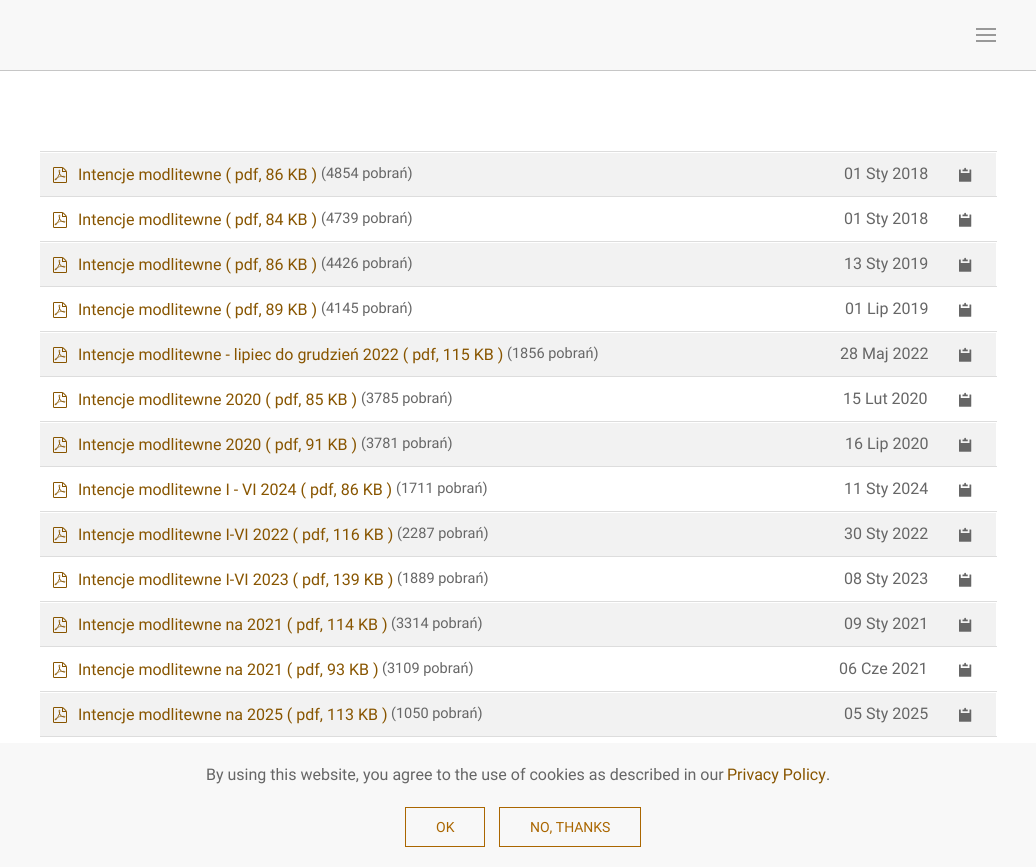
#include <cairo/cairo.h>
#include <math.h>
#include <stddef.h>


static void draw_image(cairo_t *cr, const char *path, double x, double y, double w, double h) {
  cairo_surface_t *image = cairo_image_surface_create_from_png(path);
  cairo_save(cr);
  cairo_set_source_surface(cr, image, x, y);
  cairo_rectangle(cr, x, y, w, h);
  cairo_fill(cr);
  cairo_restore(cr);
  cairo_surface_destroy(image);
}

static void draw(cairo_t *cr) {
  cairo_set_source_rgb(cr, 1, 1, 1);
  cairo_paint(cr);
  cairo_set_source_rgb(cr, 248 / 255.0, 248 / 255.0, 248 / 255.0);
  cairo_rectangle(cr, 0, 0, 1036, 70);
  cairo_fill(cr);
  cairo_set_source_rgb(cr, 198 / 255.0, 198 / 255.0, 198 / 255.0);
  cairo_rectangle(cr, 0, 70, 1036, 1);
  cairo_fill(cr);
  cairo_set_source_rgb(cr, 153 / 255.0, 153 / 255.0, 153 / 255.0);
  cairo_rectangle(cr, 976, 28, 20, 2);
  cairo_fill(cr);
  cairo_rectangle(cr, 976, 34, 20, 2);
  cairo_fill(cr);
  cairo_rectangle(cr, 976, 40, 20, 2);
  cairo_fill(cr);
  cairo_set_source_rgb(cr, 221 / 255.0, 221 / 255.0, 221 / 255.0);
  cairo_rectangle(cr, 40, 151, 957, 1);
  cairo_fill(cr);
  cairo_set_source_rgb(cr, 242 / 255.0, 242 / 255.0, 242 / 255.0);
  cairo_rectangle(cr, 40, 153, 956, 43);
  cairo_fill(cr);
  draw_image(cr, "images/1.png", 959, 167, 13, 15);
  draw_image(cr, "images/2.png", 53, 167, 14, 16);
  cairo_set_source_rgb(cr, 221 / 255.0, 221 / 255.0, 221 / 255.0);
  cairo_rectangle(cr, 40, 196, 957, 1);
  cairo_fill(cr);
  draw_image(cr, "images/3.png", 959, 212, 13, 15);
  draw_image(cr, "images/4.png", 53, 212, 14, 16);
  cairo_rectangle(cr, 40, 241, 957, 1);
  cairo_fill(cr);
  cairo_set_source_rgb(cr, 242 / 255.0, 242 / 255.0, 242 / 255.0);
  cairo_rectangle(cr, 40, 243, 956, 43);
  cairo_fill(cr);
  draw_image(cr, "images/1.png", 959, 257, 13, 15);
  draw_image(cr, "images/2.png", 53, 257, 14, 16);
  cairo_set_source_rgb(cr, 221 / 255.0, 221 / 255.0, 221 / 255.0);
  cairo_rectangle(cr, 40, 286, 957, 1);
  cairo_fill(cr);
  draw_image(cr, "images/3.png", 959, 302, 13, 15);
  draw_image(cr, "images/4.png", 53, 302, 14, 16);
  cairo_rectangle(cr, 40, 331, 957, 1);
  cairo_fill(cr);
  cairo_set_source_rgb(cr, 242 / 255.0, 242 / 255.0, 242 / 255.0);
  cairo_rectangle(cr, 40, 333, 956, 43);
  cairo_fill(cr);
  draw_image(cr, "images/1.png", 959, 347, 13, 15);
  draw_image(cr, "images/2.png", 53, 347, 14, 16);
  cairo_set_source_rgb(cr, 221 / 255.0, 221 / 255.0, 221 / 255.0);
  cairo_rectangle(cr, 40, 376, 957, 1);
  cairo_fill(cr);
  draw_image(cr, "images/3.png", 959, 392, 13, 15);
  draw_image(cr, "images/4.png", 53, 392, 14, 16);
  cairo_rectangle(cr, 40, 421, 957, 1);
  cairo_fill(cr);
  cairo_set_source_rgb(cr, 242 / 255.0, 242 / 255.0, 242 / 255.0);
  cairo_rectangle(cr, 40, 423, 956, 43);
  cairo_fill(cr);
  draw_image(cr, "images/1.png", 959, 437, 13, 15);
  draw_image(cr, "images/2.png", 53, 437, 14, 16);
  cairo_set_source_rgb(cr, 221 / 255.0, 221 / 255.0, 221 / 255.0);
  cairo_rectangle(cr, 40, 466, 957, 1);
  cairo_fill(cr);
  draw_image(cr, "images/3.png", 959, 482, 13, 15);
  draw_image(cr, "images/4.png", 53, 482, 14, 16);
  cairo_rectangle(cr, 40, 511, 957, 1);
  cairo_fill(cr);
  cairo_set_source_rgb(cr, 242 / 255.0, 242 / 255.0, 242 / 255.0);
  cairo_rectangle(cr, 40, 513, 956, 43);
  cairo_fill(cr);
  draw_image(cr, "images/1.png", 959, 527, 13, 15);
  draw_image(cr, "images/2.png", 53, 527, 14, 16);
  cairo_set_source_rgb(cr, 221 / 255.0, 221 / 255.0, 221 / 255.0);
  cairo_rectangle(cr, 40, 556, 957, 1);
  cairo_fill(cr);
  draw_image(cr, "images/3.png", 959, 572, 13, 15);
  draw_image(cr, "images/4.png", 53, 572, 14, 16);
  cairo_rectangle(cr, 40, 601, 957, 1);
  cairo_fill(cr);
  cairo_set_source_rgb(cr, 242 / 255.0, 242 / 255.0, 242 / 255.0);
  cairo_rectangle(cr, 40, 603, 956, 43);
  cairo_fill(cr);
  draw_image(cr, "images/1.png", 959, 617, 13, 15);
  draw_image(cr, "images/2.png", 53, 617, 14, 16);
  cairo_set_source_rgb(cr, 221 / 255.0, 221 / 255.0, 221 / 255.0);
  cairo_rectangle(cr, 40, 646, 957, 1);
  cairo_fill(cr);
  draw_image(cr, "images/3.png", 959, 662, 13, 15);
  draw_image(cr, "images/4.png", 53, 662, 14, 16);
  cairo_rectangle(cr, 40, 691, 957, 1);
  cairo_fill(cr);
  cairo_set_source_rgb(cr, 242 / 255.0, 242 / 255.0, 242 / 255.0);
  cairo_rectangle(cr, 40, 693, 956, 43);
  cairo_fill(cr);
  draw_image(cr, "images/1.png", 959, 707, 13, 15);
  draw_image(cr, "images/2.png", 53, 707, 14, 16);
  cairo_set_source_rgb(cr, 221 / 255.0, 221 / 255.0, 221 / 255.0);
  cairo_rectangle(cr, 40, 736, 957, 1);
  cairo_fill(cr);
  cairo_set_source_rgb(cr, 248 / 255.0, 248 / 255.0, 248 / 255.0);
  cairo_rectangle(cr, 0, 743, 1036, 124);
  cairo_fill(cr);
  cairo_rectangle(cr, 405.5, 807.5, 79, 39);
  cairo_set_source_rgb(cr, 170 / 255.0, 102 / 255.0, 0);
  cairo_set_line_width(cr, 1);
  cairo_stroke(cr);
  cairo_rectangle(cr, 499.5, 807.5, 141, 39);
  cairo_stroke(cr);
  cairo_select_font_face(cr, "Roboto", CAIRO_FONT_SLANT_NORMAL, CAIRO_FONT_WEIGHT_NORMAL);
  cairo_set_font_size(cr, 16);
  cairo_set_source_rgb(cr, 136 / 255.0, 85 / 255.0, 0);
  cairo_move_to(cr, 78, 180);
  cairo_show_text(cr, "Intencje modlitewne ( pdf, 86 KB )");
  cairo_set_font_size(cr, 14.5);
  cairo_set_source_rgb(cr, 102 / 255.0, 102 / 255.0, 102 / 255.0);
  cairo_move_to(cr, 321, 178);
  cairo_show_text(cr, "(4854 pobrań)");
  cairo_set_font_size(cr, 16);
  cairo_move_to(cr, 844, 179);
  cairo_show_text(cr, "01 Sty 2018");
  cairo_set_source_rgb(cr, 136 / 255.0, 85 / 255.0, 0);
  cairo_move_to(cr, 78, 225);
  cairo_show_text(cr, "Intencje modlitewne ( pdf, 84 KB )");
  cairo_set_font_size(cr, 14.5);
  cairo_set_source_rgb(cr, 102 / 255.0, 102 / 255.0, 102 / 255.0);
  cairo_move_to(cr, 321, 223);
  cairo_show_text(cr, "(4739 pobrań)");
  cairo_set_font_size(cr, 16);
  cairo_move_to(cr, 844, 224);
  cairo_show_text(cr, "01 Sty 2018");
  cairo_set_source_rgb(cr, 136 / 255.0, 85 / 255.0, 0);
  cairo_move_to(cr, 78, 270);
  cairo_show_text(cr, "Intencje modlitewne ( pdf, 86 KB )");
  cairo_set_font_size(cr, 14.5);
  cairo_set_source_rgb(cr, 102 / 255.0, 102 / 255.0, 102 / 255.0);
  cairo_move_to(cr, 321, 268);
  cairo_show_text(cr, "(4426 pobrań)");
  cairo_set_font_size(cr, 16);
  cairo_move_to(cr, 844, 269);
  cairo_show_text(cr, "13 Sty 2019");
  cairo_set_source_rgb(cr, 136 / 255.0, 85 / 255.0, 0);
  cairo_move_to(cr, 78, 315);
  cairo_show_text(cr, "Intencje modlitewne ( pdf, 89 KB )");
  cairo_set_font_size(cr, 14.5);
  cairo_set_source_rgb(cr, 102 / 255.0, 102 / 255.0, 102 / 255.0);
  cairo_move_to(cr, 321, 313);
  cairo_show_text(cr, "(4145 pobrań)");
  cairo_set_font_size(cr, 16);
  cairo_move_to(cr, 845, 314);
  cairo_show_text(cr, "01 Lip 2019");
  cairo_set_source_rgb(cr, 136 / 255.0, 85 / 255.0, 0);
  cairo_move_to(cr, 78, 360);
  cairo_show_text(cr, "Intencje modlitewne - lipiec do grudzień 2022 ( pdf, 115 KB )");
  cairo_set_font_size(cr, 14.5);
  cairo_set_source_rgb(cr, 102 / 255.0, 102 / 255.0, 102 / 255.0);
  cairo_move_to(cr, 507, 358);
  cairo_show_text(cr, "(1856 pobrań)");
  cairo_set_font_size(cr, 16);
  cairo_move_to(cr, 840, 359);
  cairo_show_text(cr, "28 Maj 2022");
  cairo_set_source_rgb(cr, 136 / 255.0, 85 / 255.0, 0);
  cairo_move_to(cr, 78, 405);
  cairo_show_text(cr, "Intencje modlitewne 2020 ( pdf, 85 KB )");
  cairo_set_font_size(cr, 14.5);
  cairo_set_source_rgb(cr, 102 / 255.0, 102 / 255.0, 102 / 255.0);
  cairo_move_to(cr, 361, 403);
  cairo_show_text(cr, "(3785 pobrań)");
  cairo_set_font_size(cr, 16);
  cairo_move_to(cr, 843, 404);
  cairo_show_text(cr, "15 Lut 2020");
  cairo_set_source_rgb(cr, 136 / 255.0, 85 / 255.0, 0);
  cairo_move_to(cr, 78, 450);
  cairo_show_text(cr, "Intencje modlitewne 2020 ( pdf, 91 KB )");
  cairo_set_font_size(cr, 14.5);
  cairo_set_source_rgb(cr, 102 / 255.0, 102 / 255.0, 102 / 255.0);
  cairo_move_to(cr, 361, 448);
  cairo_show_text(cr, "(3781 pobrań)");
  cairo_set_font_size(cr, 16);
  cairo_move_to(cr, 845, 449);
  cairo_show_text(cr, "16 Lip 2020");
  cairo_set_source_rgb(cr, 136 / 255.0, 85 / 255.0, 0);
  cairo_move_to(cr, 78, 495);
  cairo_show_text(cr, "Intencje modlitewne I - VI 2024 ( pdf, 86 KB )");
  cairo_set_font_size(cr, 14.5);
  cairo_set_source_rgb(cr, 102 / 255.0, 102 / 255.0, 102 / 255.0);
  cairo_move_to(cr, 396, 493);
  cairo_show_text(cr, "(1711 pobrań)");
  cairo_set_font_size(cr, 16);
  cairo_move_to(cr, 844, 494);
  cairo_show_text(cr, "11 Sty 2024");
  cairo_set_source_rgb(cr, 136 / 255.0, 85 / 255.0, 0);
  cairo_move_to(cr, 78, 540);
  cairo_show_text(cr, "Intencje modlitewne I-VI 2022 ( pdf, 116 KB )");
  cairo_set_font_size(cr, 14.5);
  cairo_set_source_rgb(cr, 102 / 255.0, 102 / 255.0, 102 / 255.0);
  cairo_move_to(cr, 397, 538);
  cairo_show_text(cr, "(2287 pobrań)");
  cairo_set_font_size(cr, 16);
  cairo_move_to(cr, 844, 539);
  cairo_show_text(cr, "30 Sty 2022");
  cairo_set_source_rgb(cr, 136 / 255.0, 85 / 255.0, 0);
  cairo_move_to(cr, 78, 585);
  cairo_show_text(cr, "Intencje modlitewne I-VI 2023 ( pdf, 139 KB )");
  cairo_set_font_size(cr, 14.5);
  cairo_set_source_rgb(cr, 102 / 255.0, 102 / 255.0, 102 / 255.0);
  cairo_move_to(cr, 397, 583);
  cairo_show_text(cr, "(1889 pobrań)");
  cairo_set_font_size(cr, 16);
  cairo_move_to(cr, 844, 584);
  cairo_show_text(cr, "08 Sty 2023");
  cairo_set_source_rgb(cr, 136 / 255.0, 85 / 255.0, 0);
  cairo_move_to(cr, 78, 630);
  cairo_show_text(cr, "Intencje modlitewne na 2021 ( pdf, 114 KB )");
  cairo_set_font_size(cr, 14.5);
  cairo_set_source_rgb(cr, 102 / 255.0, 102 / 255.0, 102 / 255.0);
  cairo_move_to(cr, 391, 628);
  cairo_show_text(cr, "(3314 pobrań)");
  cairo_set_font_size(cr, 16);
  cairo_move_to(cr, 844, 629);
  cairo_show_text(cr, "09 Sty 2021");
  cairo_set_source_rgb(cr, 136 / 255.0, 85 / 255.0, 0);
  cairo_move_to(cr, 78, 675);
  cairo_show_text(cr, "Intencje modlitewne na 2021 ( pdf, 93 KB )");
  cairo_set_font_size(cr, 14.5);
  cairo_set_source_rgb(cr, 102 / 255.0, 102 / 255.0, 102 / 255.0);
  cairo_move_to(cr, 382, 673);
  cairo_show_text(cr, "(3109 pobrań)");
  cairo_set_font_size(cr, 16);
  cairo_move_to(cr, 839, 674);
  cairo_show_text(cr, "06 Cze 2021");
  cairo_set_source_rgb(cr, 136 / 255.0, 85 / 255.0, 0);
  cairo_move_to(cr, 78, 720);
  cairo_show_text(cr, "Intencje modlitewne na 2025 ( pdf, 113 KB )");
  cairo_set_font_size(cr, 14.5);
  cairo_set_source_rgb(cr, 102 / 255.0, 102 / 255.0, 102 / 255.0);
  cairo_move_to(cr, 391, 718);
  cairo_show_text(cr, "(1050 pobrań)");
  cairo_set_font_size(cr, 16);
  cairo_move_to(cr, 844, 719);
  cairo_show_text(cr, "05 Sty 2025");
  cairo_move_to(cr, 206, 780);
  cairo_show_text(cr, "By using this website, you agree to the use of cookies as described in our");
  cairo_set_source_rgb(cr, 136 / 255.0, 85 / 255.0, 0);
  cairo_move_to(cr, 727, 780);
  cairo_show_text(cr, "Privacy Policy");
  cairo_set_source_rgb(cr, 102 / 255.0, 102 / 255.0, 102 / 255.0);
  cairo_move_to(cr, 826, 780);
  cairo_show_text(cr, ".");
  cairo_set_font_size(cr, 14);
  cairo_set_source_rgb(cr, 170 / 255.0, 102 / 255.0, 0);
  cairo_move_to(cr, 436, 832);
  cairo_show_text(cr, "OK");
  cairo_move_to(cr, 530, 832);
  cairo_show_text(cr, "NO, THANKS");
}

int main(void) {
  cairo_surface_t *surface = cairo_image_surface_create(CAIRO_FORMAT_RGB24, 1036, 867);
  cairo_t *cr = cairo_create(surface);
  cairo_font_options_t *options = cairo_font_options_create();
  cairo_font_options_set_hint_metrics(options, CAIRO_HINT_METRICS_OFF);
  cairo_font_options_set_hint_style(options, CAIRO_HINT_STYLE_NONE);
  cairo_set_font_options(cr, options);
  cairo_set_miter_limit(cr, 4);
  draw(cr);
  cairo_surface_write_to_png(surface, "out.png");
  cairo_font_options_destroy(options);
  cairo_destroy(cr);
  cairo_surface_destroy(surface);
  return 0;
}
